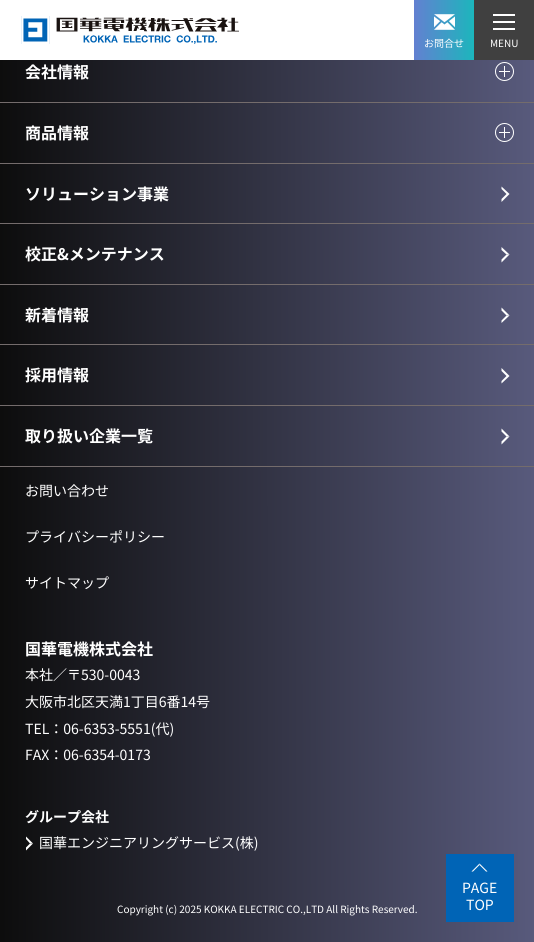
#include <cairo/cairo.h>
#include <math.h>
#include <stddef.h>


static void draw_image(cairo_t *cr, const char *path, double x, double y, double w, double h) {
  cairo_surface_t *image = cairo_image_surface_create_from_png(path);
  cairo_save(cr);
  cairo_set_source_surface(cr, image, x, y);
  cairo_rectangle(cr, x, y, w, h);
  cairo_fill(cr);
  cairo_restore(cr);
  cairo_surface_destroy(image);
}

static void draw(cairo_t *cr) {
  cairo_pattern_t *gradient;
  cairo_set_source_rgb(cr, 1, 1, 1);
  cairo_paint(cr);
  draw_image(cr, "images/1.png", 21, 16, 218, 28);
  gradient = cairo_pattern_create_linear(414, 30, 474, 30);
  cairo_pattern_add_color_stop_rgba(gradient, 0, 99 / 255.0, 128 / 255.0, 209 / 255.0, 1);
  cairo_pattern_add_color_stop_rgba(gradient, 1, 28 / 255.0, 182 / 255.0, 188 / 255.0, 1);
  cairo_set_source(cr, gradient);
  cairo_pattern_destroy(gradient);
  cairo_rectangle(cr, 414, 0, 60, 60);
  cairo_fill(cr);
  draw_image(cr, "images/2.png", 434, 14, 21, 16);
  cairo_set_source_rgb(cr, 64 / 255.0, 64 / 255.0, 64 / 255.0);
  cairo_rectangle(cr, 474, 0, 60, 60);
  cairo_fill(cr);
  cairo_set_source_rgb(cr, 1, 1, 1);
  cairo_rectangle(cr, 493, 21, 22, 2);
  cairo_fill(cr);
  cairo_rectangle(cr, 493, 14, 22, 2);
  cairo_fill(cr);
  cairo_rectangle(cr, 493, 28, 22, 2);
  cairo_fill(cr);
  gradient = cairo_pattern_create_linear(0, 243, 534, 242);
  cairo_pattern_add_color_stop_rgba(gradient, 0, 13 / 255.0, 13 / 255.0, 13 / 255.0, 1);
  cairo_pattern_add_color_stop_rgba(gradient, 1, 88 / 255.0, 90 / 255.0, 124 / 255.0, 1);
  cairo_set_source(cr, gradient);
  cairo_pattern_destroy(gradient);
  cairo_rectangle(cr, 0, 60, 534, 882);
  cairo_fill(cr);
  cairo_set_source_rgb(cr, 116 / 255.0, 108 / 255.0, 108 / 255.0);
  cairo_rectangle(cr, 0, 102, 534, 1);
  cairo_fill(cr);
  cairo_arc(cr, 504.5, 71.5, 9, 0, 2 * M_PI);
  cairo_set_source_rgb(cr, 1, 1, 1);
  cairo_set_line_width(cr, 1);
  cairo_stroke(cr);
  cairo_rectangle(cr, 499, 71, 11, 1);
  cairo_fill(cr);
  cairo_rectangle(cr, 504, 66, 1, 11);
  cairo_fill(cr);
  cairo_set_source_rgb(cr, 116 / 255.0, 108 / 255.0, 108 / 255.0);
  cairo_rectangle(cr, 0, 163, 534, 1);
  cairo_fill(cr);
  cairo_arc(cr, 504.5, 132.5, 9, 0, 2 * M_PI);
  cairo_set_source_rgb(cr, 1, 1, 1);
  cairo_stroke(cr);
  cairo_rectangle(cr, 499, 132, 11, 1);
  cairo_fill(cr);
  cairo_rectangle(cr, 504, 127, 1, 11);
  cairo_fill(cr);
  cairo_set_source_rgb(cr, 116 / 255.0, 108 / 255.0, 108 / 255.0);
  cairo_rectangle(cr, 0, 223, 534, 1);
  cairo_fill(cr);
  cairo_set_source_rgb(cr, 1, 1, 1);
  cairo_new_path(cr);
  cairo_move_to(cr, 501.5, 186.5);
  cairo_line_to(cr, 509.5, 194);
  cairo_line_to(cr, 506.5, 194);
  cairo_line_to(cr, 501.5, 189);
  cairo_close_path(cr);
  cairo_move_to(cr, 509.5, 194);
  cairo_line_to(cr, 501.5, 202);
  cairo_line_to(cr, 501.5, 199);
  cairo_line_to(cr, 506.5, 194);
  cairo_close_path(cr);
  cairo_fill(cr);
  cairo_set_source_rgb(cr, 116 / 255.0, 108 / 255.0, 108 / 255.0);
  cairo_rectangle(cr, 0, 284, 534, 1);
  cairo_fill(cr);
  cairo_set_source_rgb(cr, 1, 1, 1);
  cairo_new_path(cr);
  cairo_move_to(cr, 501.5, 247);
  cairo_line_to(cr, 509.5, 254.5);
  cairo_line_to(cr, 506.5, 254.5);
  cairo_line_to(cr, 501.5, 250);
  cairo_close_path(cr);
  cairo_fill(cr);
  cairo_new_path(cr);
  cairo_move_to(cr, 509.5, 254.5);
  cairo_line_to(cr, 501.5, 262.5);
  cairo_line_to(cr, 501.5, 259.5);
  cairo_line_to(cr, 506.5, 254.5);
  cairo_close_path(cr);
  cairo_fill(cr);
  cairo_set_source_rgb(cr, 116 / 255.0, 108 / 255.0, 108 / 255.0);
  cairo_rectangle(cr, 0, 344, 534, 1);
  cairo_fill(cr);
  cairo_set_source_rgb(cr, 1, 1, 1);
  cairo_new_path(cr);
  cairo_move_to(cr, 501.5, 307.5);
  cairo_line_to(cr, 509.5, 315.5);
  cairo_line_to(cr, 506.5, 315.5);
  cairo_line_to(cr, 501.5, 310.5);
  cairo_close_path(cr);
  cairo_fill(cr);
  cairo_new_path(cr);
  cairo_move_to(cr, 509.5, 315.5);
  cairo_line_to(cr, 501.5, 323);
  cairo_line_to(cr, 501.5, 320.5);
  cairo_line_to(cr, 506.5, 315.5);
  cairo_close_path(cr);
  cairo_fill(cr);
  cairo_set_source_rgb(cr, 116 / 255.0, 108 / 255.0, 108 / 255.0);
  cairo_rectangle(cr, 0, 405, 534, 1);
  cairo_fill(cr);
  cairo_set_source_rgb(cr, 1, 1, 1);
  cairo_new_path(cr);
  cairo_move_to(cr, 501.5, 368);
  cairo_line_to(cr, 509.5, 376);
  cairo_line_to(cr, 506.5, 376);
  cairo_line_to(cr, 501.5, 371);
  cairo_close_path(cr);
  cairo_move_to(cr, 509.5, 376);
  cairo_line_to(cr, 501.5, 383.5);
  cairo_line_to(cr, 501.5, 381);
  cairo_line_to(cr, 506.5, 376);
  cairo_close_path(cr);
  cairo_fill(cr);
  cairo_set_source_rgb(cr, 116 / 255.0, 108 / 255.0, 108 / 255.0);
  cairo_rectangle(cr, 0, 466, 534, 1);
  cairo_fill(cr);
  cairo_set_source_rgb(cr, 1, 1, 1);
  cairo_new_path(cr);
  cairo_move_to(cr, 501.5, 428.5);
  cairo_line_to(cr, 509.5, 436.5);
  cairo_line_to(cr, 506.5, 436.5);
  cairo_line_to(cr, 501.5, 431.5);
  cairo_close_path(cr);
  cairo_fill(cr);
  cairo_new_path(cr);
  cairo_move_to(cr, 509.5, 436.5);
  cairo_line_to(cr, 501.5, 444.5);
  cairo_line_to(cr, 501.5, 441.5);
  cairo_line_to(cr, 506.5, 436.5);
  cairo_close_path(cr);
  cairo_fill(cr);
  cairo_new_path(cr);
  cairo_move_to(cr, 26, 836.5);
  cairo_line_to(cr, 33, 843.5);
  cairo_line_to(cr, 30, 843.5);
  cairo_line_to(cr, 26, 839);
  cairo_close_path(cr);
  cairo_fill(cr);
  cairo_new_path(cr);
  cairo_move_to(cr, 33, 843.5);
  cairo_line_to(cr, 26, 850.5);
  cairo_line_to(cr, 26, 847.5);
  cairo_line_to(cr, 30, 843.5);
  cairo_close_path(cr);
  cairo_fill(cr);
  cairo_set_source_rgb(cr, 0, 100 / 255.0, 182 / 255.0);
  cairo_rectangle(cr, 446, 854, 68, 68);
  cairo_fill(cr);
  cairo_set_source_rgb(cr, 1, 1, 1);
  cairo_new_path(cr);
  cairo_move_to(cr, 479.5, 863.5);
  cairo_line_to(cr, 487.5, 871.5);
  cairo_line_to(cr, 486, 871.5);
  cairo_line_to(cr, 479.5, 865);
  cairo_close_path(cr);
  cairo_fill(cr);
  cairo_new_path(cr);
  cairo_move_to(cr, 471.5, 871.5);
  cairo_line_to(cr, 479.5, 863.5);
  cairo_line_to(cr, 479.5, 865);
  cairo_line_to(cr, 473, 871.5);
  cairo_close_path(cr);
  cairo_fill(cr);
  cairo_select_font_face(cr, "Noto Sans JP", CAIRO_FONT_SLANT_NORMAL, CAIRO_FONT_WEIGHT_NORMAL);
  cairo_set_font_size(cr, 10);
  cairo_move_to(cr, 424, 47);
  cairo_show_text(cr, "お問合せ");
  cairo_move_to(cr, 490, 47);
  cairo_show_text(cr, "MENU");
  cairo_select_font_face(cr, "Noto Sans JP", CAIRO_FONT_SLANT_NORMAL, CAIRO_FONT_WEIGHT_BOLD);
  cairo_set_font_size(cr, 16);
  cairo_move_to(cr, 25, 78);
  cairo_show_text(cr, "会社情報");
  cairo_move_to(cr, 25, 139);
  cairo_show_text(cr, "商品情報");
  cairo_move_to(cr, 25, 200);
  cairo_show_text(cr, "ソリューション事業");
  cairo_move_to(cr, 25, 260);
  cairo_show_text(cr, "校正&メンテナンス");
  cairo_move_to(cr, 25, 321);
  cairo_show_text(cr, "新着情報");
  cairo_move_to(cr, 25, 381);
  cairo_show_text(cr, "採用情報");
  cairo_move_to(cr, 25, 442);
  cairo_show_text(cr, "取り扱い企業一覧");
  cairo_select_font_face(cr, "Noto Sans JP", CAIRO_FONT_SLANT_NORMAL, CAIRO_FONT_WEIGHT_NORMAL);
  cairo_set_font_size(cr, 14);
  cairo_move_to(cr, 25, 496);
  cairo_show_text(cr, "お問い合わせ");
  cairo_move_to(cr, 25, 542);
  cairo_show_text(cr, "プライバシーポリシー");
  cairo_move_to(cr, 25, 588);
  cairo_show_text(cr, "サイトマップ");
  cairo_select_font_face(cr, "Noto Sans JP", CAIRO_FONT_SLANT_NORMAL, CAIRO_FONT_WEIGHT_BOLD);
  cairo_set_font_size(cr, 16);
  cairo_move_to(cr, 25, 655);
  cairo_show_text(cr, "国華電機株式会社");
  cairo_select_font_face(cr, "Noto Sans JP", CAIRO_FONT_SLANT_NORMAL, CAIRO_FONT_WEIGHT_NORMAL);
  cairo_set_font_size(cr, 14);
  cairo_move_to(cr, 25, 680);
  cairo_show_text(cr, "本社／〒530-0043");
  cairo_move_to(cr, 25, 707);
  cairo_show_text(cr, "大阪市北区天満1丁目6番14号");
  cairo_move_to(cr, 25, 734);
  cairo_show_text(cr, "TEL：06-6353-5551(代)");
  cairo_move_to(cr, 25, 760);
  cairo_show_text(cr, "FAX：06-6354-0173");
  cairo_select_font_face(cr, "Noto Sans JP", CAIRO_FONT_SLANT_NORMAL, CAIRO_FONT_WEIGHT_BOLD);
  cairo_move_to(cr, 25, 822);
  cairo_show_text(cr, "グループ会社");
  cairo_select_font_face(cr, "Noto Sans JP", CAIRO_FONT_SLANT_NORMAL, CAIRO_FONT_WEIGHT_NORMAL);
  cairo_move_to(cr, 39, 848);
  cairo_show_text(cr, "国華エンジニアリングサービス(株)");
  cairo_set_font_size(cr, 10);
  cairo_move_to(cr, 117, 913);
  cairo_show_text(cr, "Copyright (c) 2025 KOKKA ELECTRIC CO.,LTD All Rights Reserved.");
  cairo_set_font_size(cr, 14);
  cairo_move_to(cr, 462, 893);
  cairo_show_text(cr, "PAGE");
  cairo_move_to(cr, 466, 910);
  cairo_show_text(cr, "TOP");
}

int main(void) {
  cairo_surface_t *surface = cairo_image_surface_create(CAIRO_FORMAT_RGB24, 534, 942);
  cairo_t *cr = cairo_create(surface);
  cairo_font_options_t *options = cairo_font_options_create();
  cairo_font_options_set_hint_metrics(options, CAIRO_HINT_METRICS_OFF);
  cairo_font_options_set_hint_style(options, CAIRO_HINT_STYLE_NONE);
  cairo_set_font_options(cr, options);
  cairo_set_miter_limit(cr, 4);
  draw(cr);
  cairo_surface_write_to_png(surface, "out.png");
  cairo_font_options_destroy(options);
  cairo_destroy(cr);
  cairo_surface_destroy(surface);
  return 0;
}
